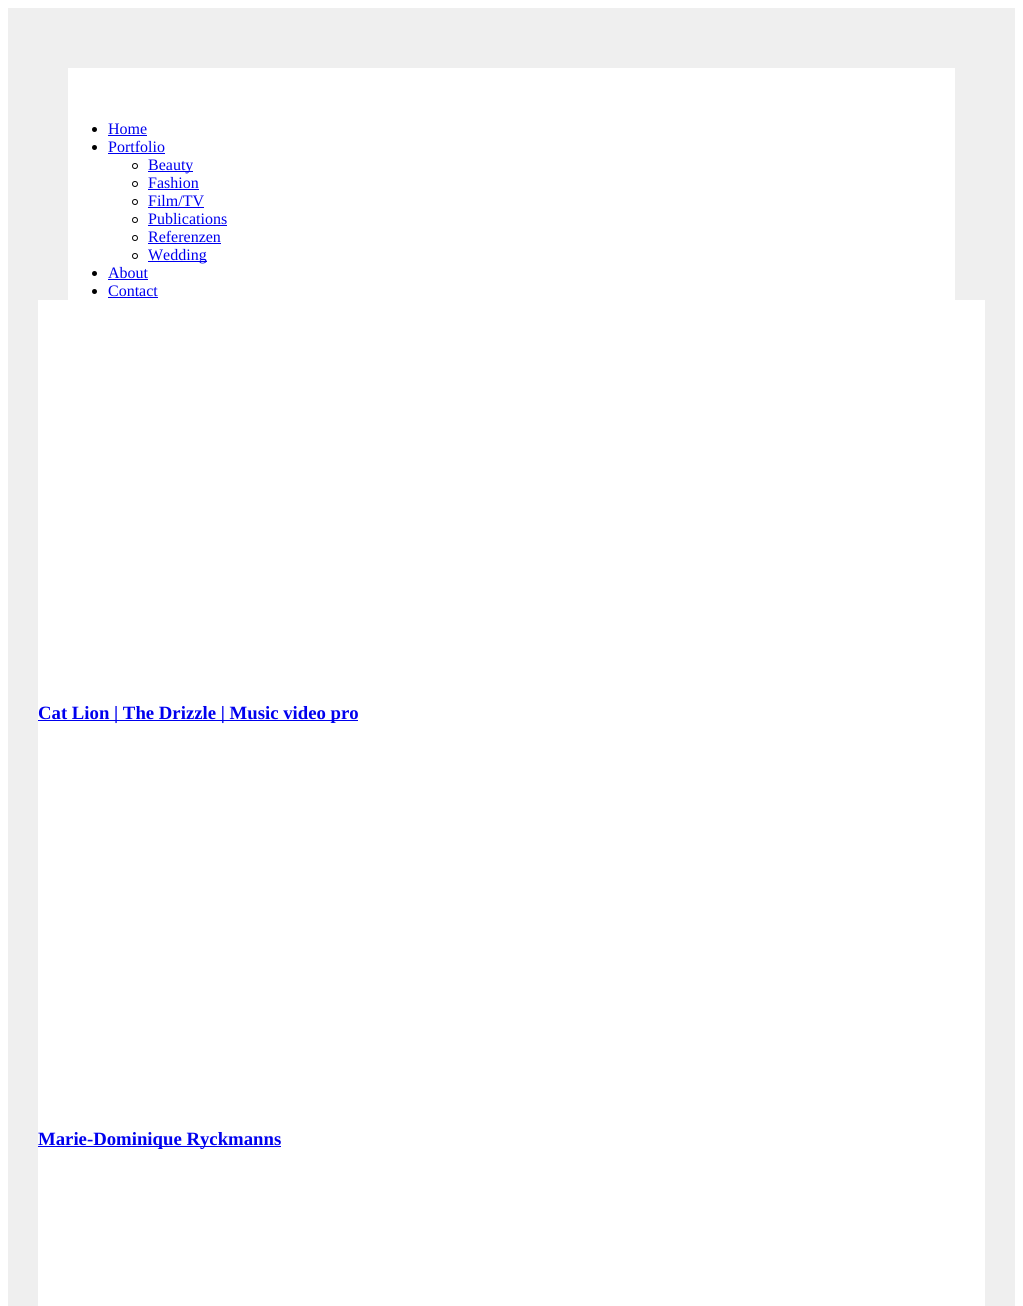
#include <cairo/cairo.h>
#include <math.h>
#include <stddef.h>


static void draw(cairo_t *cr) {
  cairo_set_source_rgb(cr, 1, 1, 1);
  cairo_paint(cr);
  cairo_rectangle(cr, 23, 23, 977, 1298);
  cairo_set_source_rgb(cr, 239 / 255.0, 239 / 255.0, 239 / 255.0);
  cairo_set_line_width(cr, 30);
  cairo_stroke(cr);
  cairo_rectangle(cr, 68, 38, 887, 30);
  cairo_fill(cr);
  cairo_rectangle(cr, 955, 38, 30, 262);
  cairo_fill(cr);
  cairo_rectangle(cr, 38, 38, 30, 262);
  cairo_fill(cr);
  cairo_set_source_rgb(cr, 0, 0, 0);
  cairo_arc(cr, 94.5, 129.5, 2.5, 0, 2 * M_PI);
  cairo_fill(cr);
  cairo_set_source_rgb(cr, 0, 0, 238 / 255.0);
  cairo_rectangle(cr, 108, 135, 39, 1);
  cairo_fill(cr);
  cairo_set_source_rgb(cr, 0, 0, 0);
  cairo_arc(cr, 94.5, 147.5, 2.5, 0, 2 * M_PI);
  cairo_fill(cr);
  cairo_set_source_rgb(cr, 0, 0, 238 / 255.0);
  cairo_rectangle(cr, 108, 153, 57, 1);
  cairo_fill(cr);
  cairo_arc(cr, 135, 166, 2.5, 0, 2 * M_PI);
  cairo_set_source_rgb(cr, 0, 0, 0);
  cairo_set_line_width(cr, 1);
  cairo_stroke(cr);
  cairo_set_source_rgb(cr, 0, 0, 238 / 255.0);
  cairo_rectangle(cr, 148, 171, 45, 1);
  cairo_fill(cr);
  cairo_arc(cr, 135, 184, 2.5, 0, 2 * M_PI);
  cairo_set_source_rgb(cr, 0, 0, 0);
  cairo_stroke(cr);
  cairo_set_source_rgb(cr, 0, 0, 238 / 255.0);
  cairo_rectangle(cr, 148, 189, 51, 1);
  cairo_fill(cr);
  cairo_arc(cr, 135, 202, 2.5, 0, 2 * M_PI);
  cairo_set_source_rgb(cr, 0, 0, 0);
  cairo_stroke(cr);
  cairo_set_source_rgb(cr, 0, 0, 238 / 255.0);
  cairo_rectangle(cr, 148, 207, 56, 1);
  cairo_fill(cr);
  cairo_arc(cr, 135, 220, 2.5, 0, 2 * M_PI);
  cairo_set_source_rgb(cr, 0, 0, 0);
  cairo_stroke(cr);
  cairo_set_source_rgb(cr, 0, 0, 238 / 255.0);
  cairo_rectangle(cr, 148, 225, 79, 1);
  cairo_fill(cr);
  cairo_arc(cr, 135, 238, 2.5, 0, 2 * M_PI);
  cairo_set_source_rgb(cr, 0, 0, 0);
  cairo_stroke(cr);
  cairo_set_source_rgb(cr, 0, 0, 238 / 255.0);
  cairo_rectangle(cr, 148, 243, 73, 1);
  cairo_fill(cr);
  cairo_arc(cr, 135, 256, 2.5, 0, 2 * M_PI);
  cairo_set_source_rgb(cr, 0, 0, 0);
  cairo_stroke(cr);
  cairo_set_source_rgb(cr, 0, 0, 238 / 255.0);
  cairo_rectangle(cr, 148, 261, 59, 1);
  cairo_fill(cr);
  cairo_set_source_rgb(cr, 0, 0, 0);
  cairo_arc(cr, 94.5, 273.5, 2.5, 0, 2 * M_PI);
  cairo_fill(cr);
  cairo_set_source_rgb(cr, 0, 0, 238 / 255.0);
  cairo_rectangle(cr, 108, 279, 40, 1);
  cairo_fill(cr);
  cairo_set_source_rgb(cr, 0, 0, 0);
  cairo_arc(cr, 94.5, 291.5, 2.5, 0, 2 * M_PI);
  cairo_fill(cr);
  cairo_set_source_rgb(cr, 0, 0, 238 / 255.0);
  cairo_rectangle(cr, 108, 297, 50, 1);
  cairo_fill(cr);
  cairo_rectangle(cr, 38, 720, 320, 1);
  cairo_fill(cr);
  cairo_rectangle(cr, 38, 1146, 243, 1);
  cairo_fill(cr);
  cairo_select_font_face(cr, "Liberation Serif", CAIRO_FONT_SLANT_NORMAL, CAIRO_FONT_WEIGHT_NORMAL);
  cairo_set_font_size(cr, 16);
  cairo_move_to(cr, 108, 134);
  cairo_show_text(cr, "Home");
  cairo_move_to(cr, 108, 152);
  cairo_show_text(cr, "Portfolio");
  cairo_move_to(cr, 148, 170);
  cairo_show_text(cr, "Beauty");
  cairo_move_to(cr, 148, 188);
  cairo_show_text(cr, "Fashion");
  cairo_move_to(cr, 148, 206);
  cairo_show_text(cr, "Film/TV");
  cairo_move_to(cr, 148, 224);
  cairo_show_text(cr, "Publications");
  cairo_move_to(cr, 148, 242);
  cairo_show_text(cr, "Referenzen");
  cairo_move_to(cr, 148, 260);
  cairo_show_text(cr, "Wedding");
  cairo_move_to(cr, 108, 278);
  cairo_show_text(cr, "About");
  cairo_move_to(cr, 108, 296);
  cairo_show_text(cr, "Contact");
  cairo_select_font_face(cr, "Liberation Serif", CAIRO_FONT_SLANT_NORMAL, CAIRO_FONT_WEIGHT_BOLD);
  cairo_set_font_size(cr, 18.75);
  cairo_move_to(cr, 38, 719);
  cairo_show_text(cr, "Cat Lion | The Drizzle | Music video pro");
  cairo_move_to(cr, 38, 1145);
  cairo_show_text(cr, "Marie-Dominique Ryckmanns");
}

int main(void) {
  cairo_surface_t *surface = cairo_image_surface_create(CAIRO_FORMAT_RGB24, 1023, 1306);
  cairo_t *cr = cairo_create(surface);
  cairo_font_options_t *options = cairo_font_options_create();
  cairo_font_options_set_hint_metrics(options, CAIRO_HINT_METRICS_OFF);
  cairo_font_options_set_hint_style(options, CAIRO_HINT_STYLE_NONE);
  cairo_set_font_options(cr, options);
  cairo_set_miter_limit(cr, 4);
  draw(cr);
  cairo_surface_write_to_png(surface, "out.png");
  cairo_font_options_destroy(options);
  cairo_destroy(cr);
  cairo_surface_destroy(surface);
  return 0;
}
